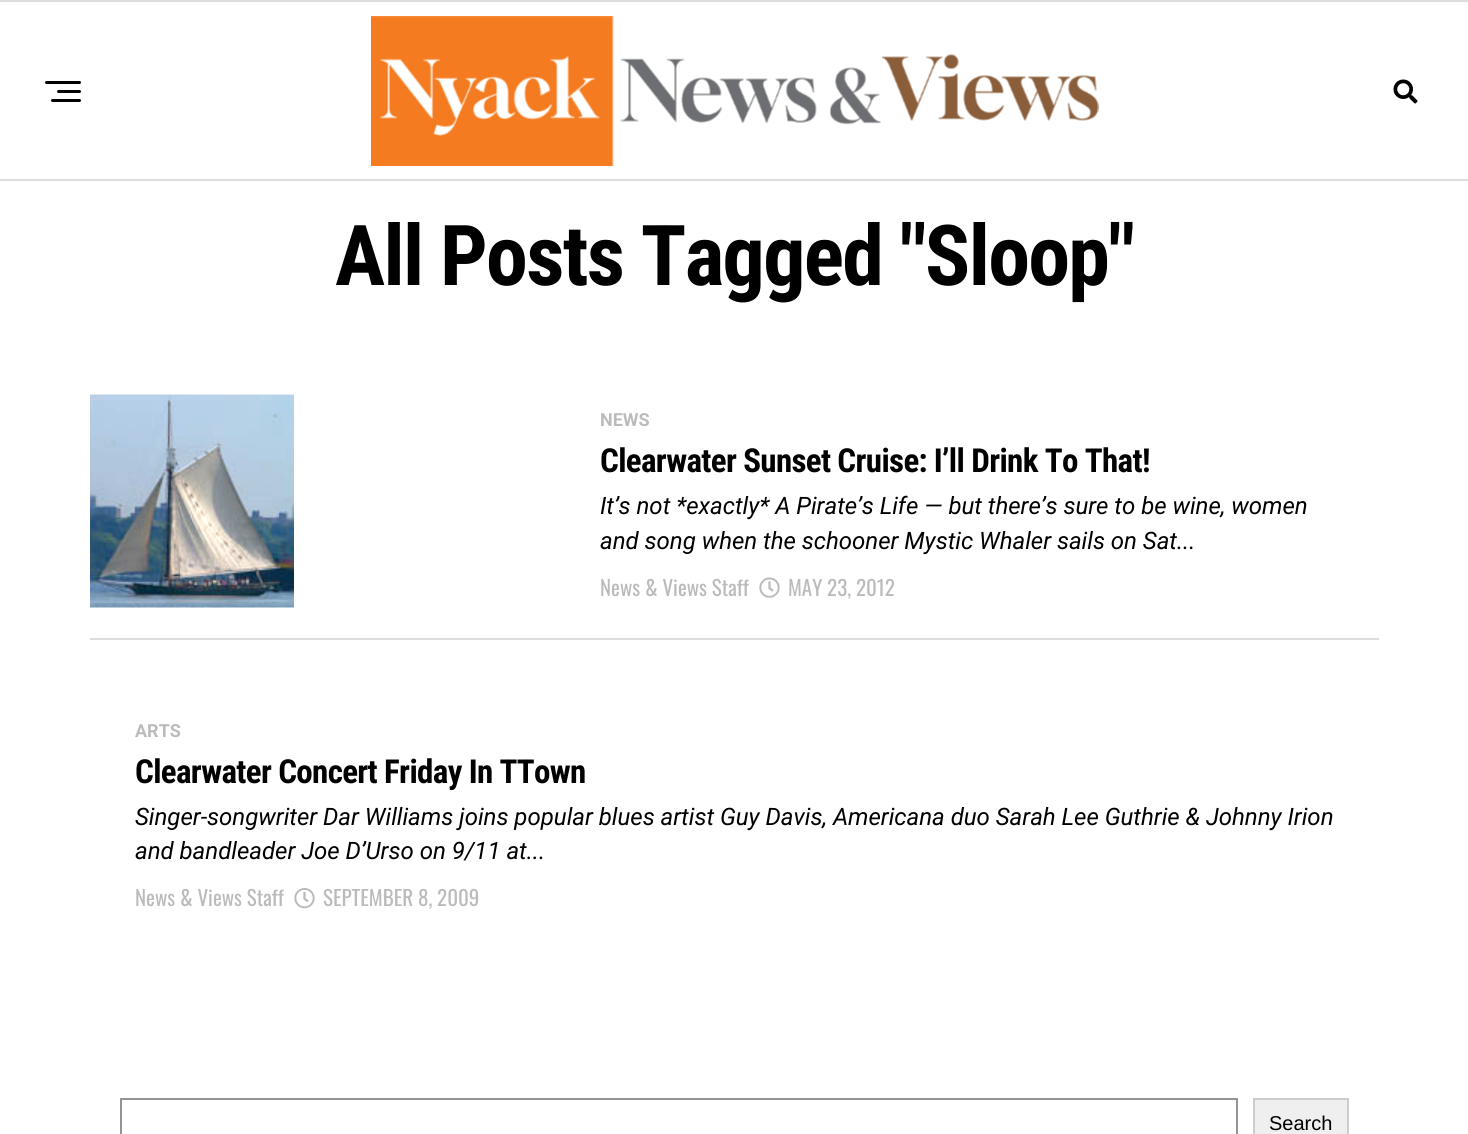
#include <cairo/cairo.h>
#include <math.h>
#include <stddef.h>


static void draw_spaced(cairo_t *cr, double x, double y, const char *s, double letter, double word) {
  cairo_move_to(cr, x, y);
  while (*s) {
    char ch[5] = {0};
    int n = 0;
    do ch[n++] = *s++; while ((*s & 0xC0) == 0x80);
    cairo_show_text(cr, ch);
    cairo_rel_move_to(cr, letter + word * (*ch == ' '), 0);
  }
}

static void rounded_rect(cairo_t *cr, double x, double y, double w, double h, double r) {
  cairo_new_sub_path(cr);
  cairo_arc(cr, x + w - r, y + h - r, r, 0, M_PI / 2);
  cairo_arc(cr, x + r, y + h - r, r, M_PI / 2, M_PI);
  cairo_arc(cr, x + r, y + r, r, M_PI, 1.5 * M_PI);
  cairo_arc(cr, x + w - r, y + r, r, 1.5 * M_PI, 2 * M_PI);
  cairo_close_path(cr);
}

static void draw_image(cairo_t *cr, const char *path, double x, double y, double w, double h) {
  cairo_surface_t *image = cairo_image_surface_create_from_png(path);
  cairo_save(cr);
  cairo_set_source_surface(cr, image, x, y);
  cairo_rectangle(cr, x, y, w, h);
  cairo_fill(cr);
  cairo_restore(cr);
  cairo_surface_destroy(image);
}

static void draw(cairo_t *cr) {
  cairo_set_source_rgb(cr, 1, 1, 1);
  cairo_paint(cr);
  cairo_set_source_rgb(cr, 221 / 255.0, 221 / 255.0, 221 / 255.0);
  cairo_rectangle(cr, 0, 0, 1468, 2);
  cairo_fill(cr);
  cairo_rectangle(cr, 0, 179, 1468, 2);
  cairo_fill(cr);
  cairo_set_source_rgb(cr, 0, 0, 0);
  rounded_rect(cr, 45, 81, 36, 3, 1.5);
  cairo_fill(cr);
  rounded_rect(cr, 57, 90, 24, 3, 1.5);
  cairo_fill(cr);
  rounded_rect(cr, 51, 99, 30, 3, 1.5);
  cairo_fill(cr);
  draw_image(cr, "images/1.png", 371, 16, 728, 150);
  draw_image(cr, "images/2.png", 1393, 79, 25, 25);
  draw_image(cr, "images/3.png", 90, 394, 204, 214);
  draw_image(cr, "images/4.png", 759, 577, 21, 21);
  cairo_set_source_rgb(cr, 221 / 255.0, 221 / 255.0, 221 / 255.0);
  cairo_rectangle(cr, 90, 638, 1289, 2);
  cairo_fill(cr);
  draw_image(cr, "images/5.png", 294, 888, 21, 21);
  cairo_rectangle(cr, 121, 1099, 1116, 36);
  cairo_set_source_rgb(cr, 148 / 255.0, 148 / 255.0, 148 / 255.0);
  cairo_stroke(cr);
  cairo_set_source_rgb(cr, 239 / 255.0, 239 / 255.0, 239 / 255.0);
  cairo_rectangle(cr, 1254, 1099, 94, 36);
  cairo_fill_preserve(cr);
  cairo_set_source_rgb(cr, 204 / 255.0, 204 / 255.0, 204 / 255.0);
  cairo_stroke(cr);
  cairo_select_font_face(cr, "Roboto Condensed", CAIRO_FONT_SLANT_NORMAL, CAIRO_FONT_WEIGHT_BOLD);
  cairo_set_font_size(cr, 84);
  cairo_set_source_rgb(cr, 0, 0, 0);
  draw_spaced(cr, 335, 285, "All Posts Tagged \"Sloop\"", -1.7, 0);
  cairo_select_font_face(cr, "Roboto", CAIRO_FONT_SLANT_NORMAL, CAIRO_FONT_WEIGHT_BOLD);
  cairo_set_font_size(cr, 18);
  cairo_set_source_rgb(cr, 187 / 255.0, 187 / 255.0, 187 / 255.0);
  cairo_move_to(cr, 600, 426);
  cairo_show_text(cr, "NEWS");
  cairo_select_font_face(cr, "Roboto Condensed", CAIRO_FONT_SLANT_NORMAL, CAIRO_FONT_WEIGHT_BOLD);
  cairo_set_font_size(cr, 33);
  cairo_set_source_rgb(cr, 0, 0, 0);
  draw_spaced(cr, 600, 472, "Clearwater Sunset Cruise: I’ll Drink To That!", -0.65, 0);
  cairo_select_font_face(cr, "Roboto", CAIRO_FONT_SLANT_ITALIC, CAIRO_FONT_WEIGHT_NORMAL);
  cairo_set_font_size(cr, 24);
  cairo_move_to(cr, 600, 514);
  cairo_show_text(cr, "It’s not *exactly* A Pirate’s Life — but there’s sure to be wine, women");
  cairo_move_to(cr, 600, 549);
  cairo_show_text(cr, "and song when the schooner Mystic Whaler sails on Sat...");
  cairo_select_font_face(cr, "Oswald", CAIRO_FONT_SLANT_NORMAL, CAIRO_FONT_WEIGHT_NORMAL);
  cairo_set_font_size(cr, 21);
  cairo_set_source_rgb(cr, 187 / 255.0, 187 / 255.0, 187 / 255.0);
  cairo_move_to(cr, 600, 596);
  cairo_show_text(cr, "News & Views Staff");
  cairo_move_to(cr, 788, 596);
  cairo_show_text(cr, "MAY 23, 2012");
  cairo_select_font_face(cr, "Roboto", CAIRO_FONT_SLANT_NORMAL, CAIRO_FONT_WEIGHT_BOLD);
  cairo_set_font_size(cr, 18);
  cairo_move_to(cr, 135, 737);
  cairo_show_text(cr, "ARTS");
  cairo_select_font_face(cr, "Roboto Condensed", CAIRO_FONT_SLANT_NORMAL, CAIRO_FONT_WEIGHT_BOLD);
  cairo_set_font_size(cr, 33);
  cairo_set_source_rgb(cr, 0, 0, 0);
  draw_spaced(cr, 135, 783, "Clearwater Concert Friday In TTown", -0.65, 0);
  cairo_select_font_face(cr, "Roboto", CAIRO_FONT_SLANT_ITALIC, CAIRO_FONT_WEIGHT_NORMAL);
  cairo_set_font_size(cr, 24);
  cairo_move_to(cr, 135, 825);
  cairo_show_text(cr, "Singer-songwriter Dar Williams joins popular blues artist Guy Davis, Americana duo Sarah Lee Guthrie & Johnny Irion");
  cairo_move_to(cr, 135, 859);
  cairo_show_text(cr, "and bandleader Joe D’Urso on 9/11 at...");
  cairo_select_font_face(cr, "Oswald", CAIRO_FONT_SLANT_NORMAL, CAIRO_FONT_WEIGHT_NORMAL);
  cairo_set_font_size(cr, 21);
  cairo_set_source_rgb(cr, 187 / 255.0, 187 / 255.0, 187 / 255.0);
  cairo_move_to(cr, 135, 906);
  cairo_show_text(cr, "News & Views Staff");
  cairo_move_to(cr, 323, 906);
  cairo_show_text(cr, "SEPTEMBER 8, 2009");
  cairo_select_font_face(cr, "Liberation Sans", CAIRO_FONT_SLANT_NORMAL, CAIRO_FONT_WEIGHT_NORMAL);
  cairo_set_font_size(cr, 20);
  cairo_set_source_rgb(cr, 0, 0, 0);
  cairo_move_to(cr, 1269, 1130);
  cairo_show_text(cr, "Search");
}

int main(void) {
  cairo_surface_t *surface = cairo_image_surface_create(CAIRO_FORMAT_RGB24, 1468, 1134);
  cairo_t *cr = cairo_create(surface);
  cairo_font_options_t *options = cairo_font_options_create();
  cairo_font_options_set_hint_metrics(options, CAIRO_HINT_METRICS_OFF);
  cairo_font_options_set_hint_style(options, CAIRO_HINT_STYLE_NONE);
  cairo_set_font_options(cr, options);
  cairo_set_miter_limit(cr, 4);
  draw(cr);
  cairo_surface_write_to_png(surface, "out.png");
  cairo_font_options_destroy(options);
  cairo_destroy(cr);
  cairo_surface_destroy(surface);
  return 0;
}
